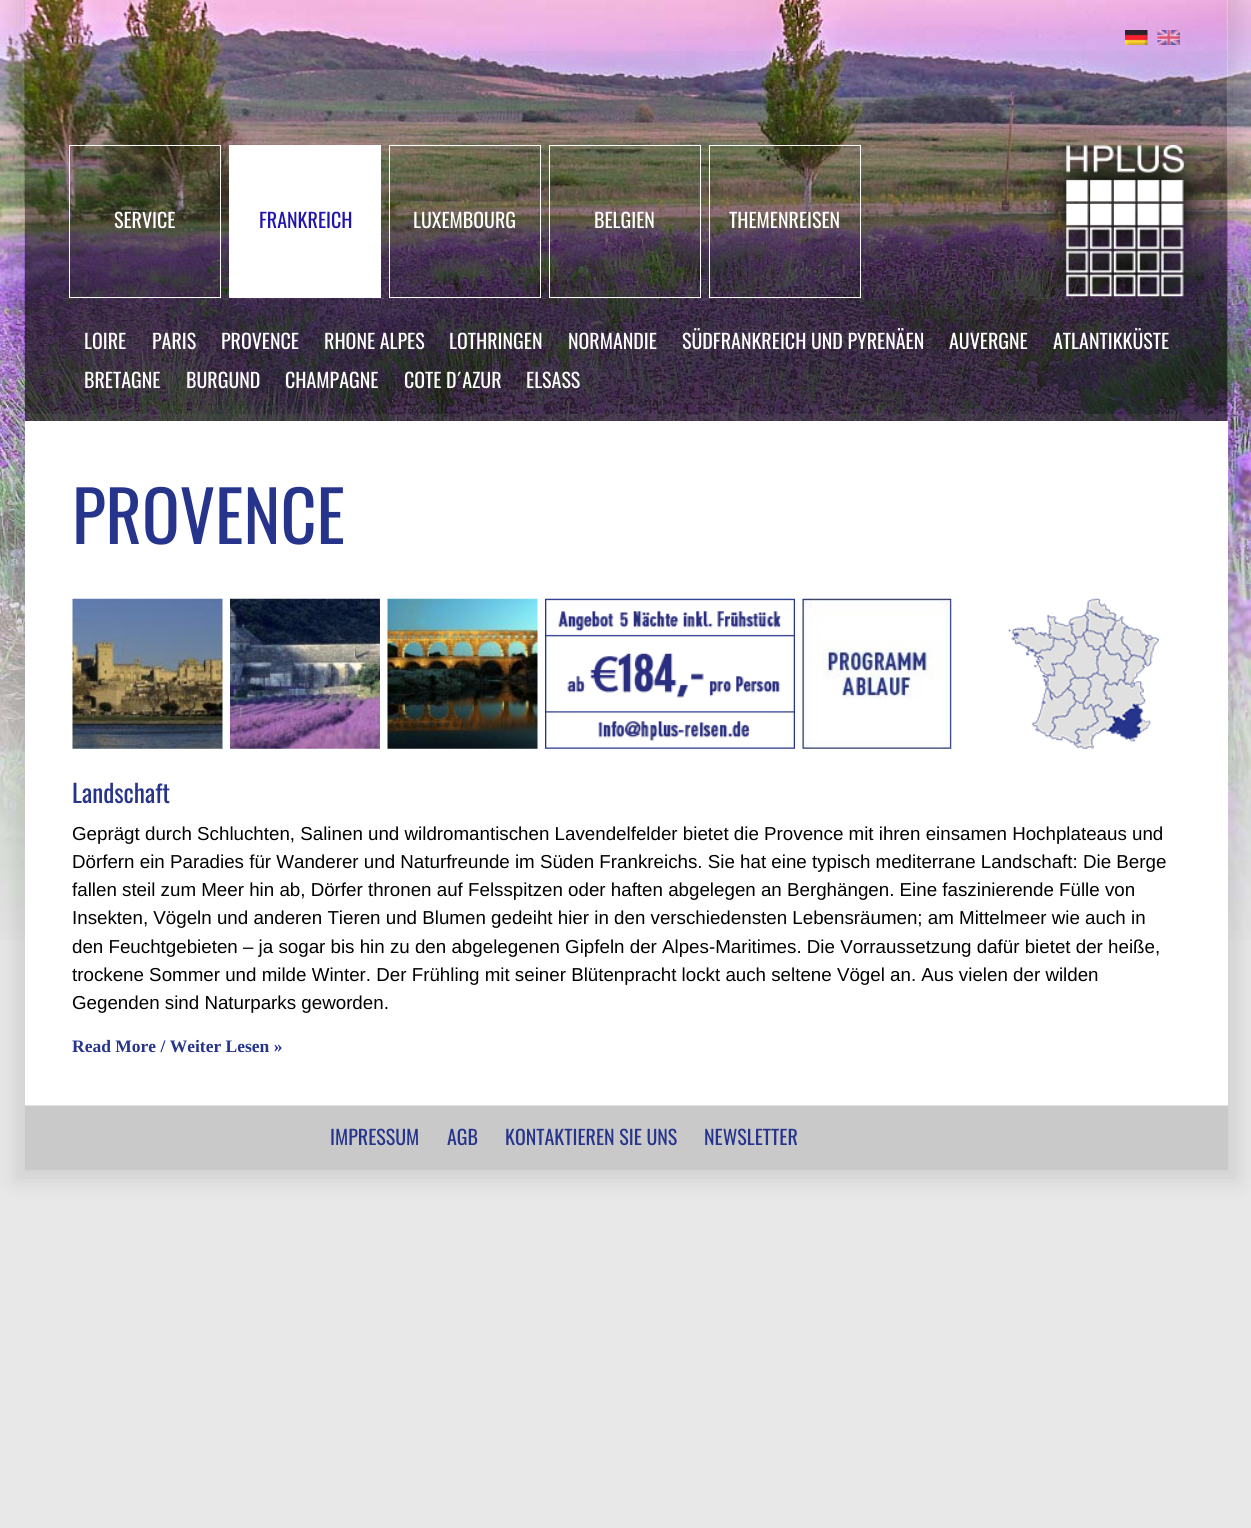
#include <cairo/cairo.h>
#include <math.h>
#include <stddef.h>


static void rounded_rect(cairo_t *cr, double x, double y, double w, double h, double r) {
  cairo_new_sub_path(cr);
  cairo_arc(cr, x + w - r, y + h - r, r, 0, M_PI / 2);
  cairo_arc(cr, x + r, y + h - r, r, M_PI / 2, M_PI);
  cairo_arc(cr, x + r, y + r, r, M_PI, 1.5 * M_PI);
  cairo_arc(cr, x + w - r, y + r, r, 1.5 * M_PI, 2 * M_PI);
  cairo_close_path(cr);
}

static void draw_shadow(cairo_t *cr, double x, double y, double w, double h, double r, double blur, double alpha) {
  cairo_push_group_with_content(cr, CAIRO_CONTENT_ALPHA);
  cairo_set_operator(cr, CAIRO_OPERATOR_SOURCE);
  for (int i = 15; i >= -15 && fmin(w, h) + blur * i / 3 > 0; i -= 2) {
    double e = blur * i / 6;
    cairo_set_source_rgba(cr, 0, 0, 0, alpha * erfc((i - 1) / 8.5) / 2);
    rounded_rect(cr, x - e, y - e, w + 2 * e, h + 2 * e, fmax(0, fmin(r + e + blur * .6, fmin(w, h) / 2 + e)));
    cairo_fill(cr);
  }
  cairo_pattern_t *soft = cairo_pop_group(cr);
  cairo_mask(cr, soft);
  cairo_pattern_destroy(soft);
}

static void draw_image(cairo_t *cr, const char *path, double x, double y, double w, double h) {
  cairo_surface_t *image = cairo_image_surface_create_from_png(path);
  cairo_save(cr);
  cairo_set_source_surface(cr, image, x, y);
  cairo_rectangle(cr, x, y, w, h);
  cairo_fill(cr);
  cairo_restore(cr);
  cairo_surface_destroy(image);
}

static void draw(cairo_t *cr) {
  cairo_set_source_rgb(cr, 232 / 255.0, 232 / 255.0, 232 / 255.0);
  cairo_paint(cr);
  draw_image(cr, "images/1.png", 0, 0, 1251, 940);
  cairo_save(cr);
  cairo_set_fill_rule(cr, CAIRO_FILL_RULE_EVEN_ODD);
  cairo_new_path(cr);
  cairo_move_to(cr, 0, 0);
  cairo_line_to(cr, 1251, 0);
  cairo_line_to(cr, 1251, 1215);
  cairo_line_to(cr, 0, 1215);
  cairo_close_path(cr);
  cairo_move_to(cr, 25, 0);
  cairo_line_to(cr, 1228, 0);
  cairo_line_to(cr, 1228, 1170);
  cairo_line_to(cr, 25, 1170);
  cairo_close_path(cr);
  cairo_clip(cr);
  cairo_set_source_rgb(cr, 0, 0, 0);
  draw_shadow(cr, 14, -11, 1225, 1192, 0, 11, 0.1);
  cairo_restore(cr);
  draw_image(cr, "images/6.png", 25, 298, 1203, 123);
  draw_image(cr, "images/2.png", 25, 51, 1203, 248);
  draw_image(cr, "images/3.png", 1125, 30, 23, 15);
  draw_image(cr, "images/4.png", 1157, 30, 23, 15);
  cairo_rectangle(cr, 69.5, 145.5, 151, 152);
  cairo_set_source_rgb(cr, 1, 1, 1);
  cairo_set_line_width(cr, 1);
  cairo_stroke(cr);
  cairo_rectangle(cr, 229, 145, 152, 153);
  cairo_fill(cr);
  cairo_rectangle(cr, 389.5, 145.5, 151, 152);
  cairo_stroke(cr);
  cairo_rectangle(cr, 549.5, 145.5, 151, 152);
  cairo_stroke(cr);
  cairo_rectangle(cr, 709.5, 145.5, 151, 152);
  cairo_stroke(cr);
  draw_image(cr, "images/5.png", 1040, 145, 169, 152);
  cairo_rectangle(cr, 25, 421, 1203, 684);
  cairo_fill(cr);
  cairo_set_source_rgb(cr, 226 / 255.0, 226 / 255.0, 226 / 255.0);
  cairo_rectangle(cr, 25, 1105, 1203, 1);
  cairo_fill(cr);
  draw_image(cr, "images/7.png", 72, 598, 151, 151);
  draw_image(cr, "images/8.png", 230, 598, 150, 151);
  draw_image(cr, "images/9.png", 387, 598, 151, 151);
  draw_image(cr, "images/10.png", 545, 598, 250, 151);
  draw_image(cr, "images/11.png", 802, 598, 150, 151);
  draw_image(cr, "images/12.png", 1008, 598, 151, 151);
  cairo_set_source_rgb(cr, 202 / 255.0, 201 / 255.0, 201 / 255.0);
  cairo_rectangle(cr, 25, 1106, 1203, 64);
  cairo_fill(cr);
  cairo_select_font_face(cr, "Oswald", CAIRO_FONT_SLANT_NORMAL, CAIRO_FONT_WEIGHT_NORMAL);
  cairo_set_font_size(cr, 20);
  cairo_set_source_rgb(cr, 1, 1, 1);
  cairo_move_to(cr, 114, 228);
  cairo_show_text(cr, "SERVICE");
  cairo_set_source_rgb(cr, 32 / 255.0, 19 / 255.0, 174 / 255.0);
  cairo_move_to(cr, 259, 228);
  cairo_show_text(cr, "FRANKREICH");
  cairo_set_source_rgb(cr, 1, 1, 1);
  cairo_move_to(cr, 413, 228);
  cairo_show_text(cr, "LUXEMBOURG");
  cairo_move_to(cr, 594, 228);
  cairo_show_text(cr, "BELGIEN");
  cairo_move_to(cr, 729, 228);
  cairo_show_text(cr, "THEMENREISEN");
  cairo_move_to(cr, 84, 349);
  cairo_show_text(cr, "LOIRE");
  cairo_move_to(cr, 152, 349);
  cairo_show_text(cr, "PARIS");
  cairo_move_to(cr, 221, 349);
  cairo_show_text(cr, "PROVENCE");
  cairo_move_to(cr, 324, 349);
  cairo_show_text(cr, "RHONE ALPES");
  cairo_move_to(cr, 449, 349);
  cairo_show_text(cr, "LOTHRINGEN");
  cairo_move_to(cr, 568, 349);
  cairo_show_text(cr, "NORMANDIE");
  cairo_move_to(cr, 682, 349);
  cairo_show_text(cr, "SÜDFRANKREICH UND PYRENÄEN");
  cairo_move_to(cr, 949, 349);
  cairo_show_text(cr, "AUVERGNE");
  cairo_move_to(cr, 1053, 349);
  cairo_show_text(cr, "ATLANTIKKÜSTE");
  cairo_move_to(cr, 84, 388);
  cairo_show_text(cr, "BRETAGNE");
  cairo_move_to(cr, 186, 388);
  cairo_show_text(cr, "BURGUND");
  cairo_move_to(cr, 285, 388);
  cairo_show_text(cr, "CHAMPAGNE");
  cairo_move_to(cr, 404, 388);
  cairo_show_text(cr, "COTE D´AZUR");
  cairo_move_to(cr, 526, 388);
  cairo_show_text(cr, "ELSASS");
  cairo_set_font_size(cr, 70);
  cairo_set_source_rgb(cr, 38 / 255.0, 52 / 255.0, 139 / 255.0);
  cairo_move_to(cr, 72, 544);
  cairo_show_text(cr, "PROVENCE");
  cairo_set_font_size(cr, 25);
  cairo_move_to(cr, 72, 803);
  cairo_show_text(cr, "Landschaft");
  cairo_select_font_face(cr, "Liberation Sans", CAIRO_FONT_SLANT_NORMAL, CAIRO_FONT_WEIGHT_NORMAL);
  cairo_set_font_size(cr, 18.75);
  cairo_set_source_rgb(cr, 0, 0, 0);
  cairo_move_to(cr, 72, 840);
  cairo_show_text(cr, "Geprägt durch Schluchten, Salinen und wildromantischen Lavendelfelder bietet die Provence mit ihren einsamen Hochplateaus und");
  cairo_move_to(cr, 72, 868);
  cairo_show_text(cr, "Dörfern ein Paradies für Wanderer und Naturfreunde im Süden Frankreichs. Sie hat eine typisch mediterrane Landschaft: Die Berge");
  cairo_move_to(cr, 72, 896);
  cairo_show_text(cr, "fallen steil zum Meer hin ab, Dörfer thronen auf Felsspitzen oder haften abgelegen an Berghängen. Eine faszinierende Fülle von");
  cairo_move_to(cr, 72, 924);
  cairo_show_text(cr, "Insekten, Vögeln und anderen Tieren und Blumen gedeiht hier in den verschiedensten Lebensräumen; am Mittelmeer wie auch in");
  cairo_move_to(cr, 72, 953);
  cairo_show_text(cr, "den Feuchtgebieten – ja sogar bis hin zu den abgelegenen Gipfeln der Alpes-Maritimes. Die Vorraussetzung dafür bietet der heiße,");
  cairo_move_to(cr, 72, 981);
  cairo_show_text(cr, "trockene Sommer und milde Winter. Der Frühling mit seiner Blütenpracht lockt auch seltene Vögel an. Aus vielen der wilden");
  cairo_move_to(cr, 72, 1009);
  cairo_show_text(cr, "Gegenden sind Naturparks geworden.");
  cairo_select_font_face(cr, "Liberation Serif", CAIRO_FONT_SLANT_NORMAL, CAIRO_FONT_WEIGHT_BOLD);
  cairo_set_font_size(cr, 17.5);
  cairo_set_source_rgb(cr, 38 / 255.0, 52 / 255.0, 139 / 255.0);
  cairo_move_to(cr, 72, 1052);
  cairo_show_text(cr, "Read More / Weiter Lesen »");
  cairo_select_font_face(cr, "Oswald", CAIRO_FONT_SLANT_NORMAL, CAIRO_FONT_WEIGHT_NORMAL);
  cairo_set_font_size(cr, 20);
  cairo_move_to(cr, 330, 1145);
  cairo_show_text(cr, "IMPRESSUM");
  cairo_move_to(cr, 447, 1145);
  cairo_show_text(cr, "AGB");
  cairo_move_to(cr, 505, 1145);
  cairo_show_text(cr, "KONTAKTIEREN SIE UNS");
  cairo_move_to(cr, 704, 1145);
  cairo_show_text(cr, "NEWSLETTER");
}

int main(void) {
  cairo_surface_t *surface = cairo_image_surface_create(CAIRO_FORMAT_RGB24, 1251, 1528);
  cairo_t *cr = cairo_create(surface);
  cairo_font_options_t *options = cairo_font_options_create();
  cairo_font_options_set_hint_metrics(options, CAIRO_HINT_METRICS_OFF);
  cairo_font_options_set_hint_style(options, CAIRO_HINT_STYLE_NONE);
  cairo_set_font_options(cr, options);
  cairo_set_miter_limit(cr, 4);
  draw(cr);
  cairo_surface_write_to_png(surface, "out.png");
  cairo_font_options_destroy(options);
  cairo_destroy(cr);
  cairo_surface_destroy(surface);
  return 0;
}
